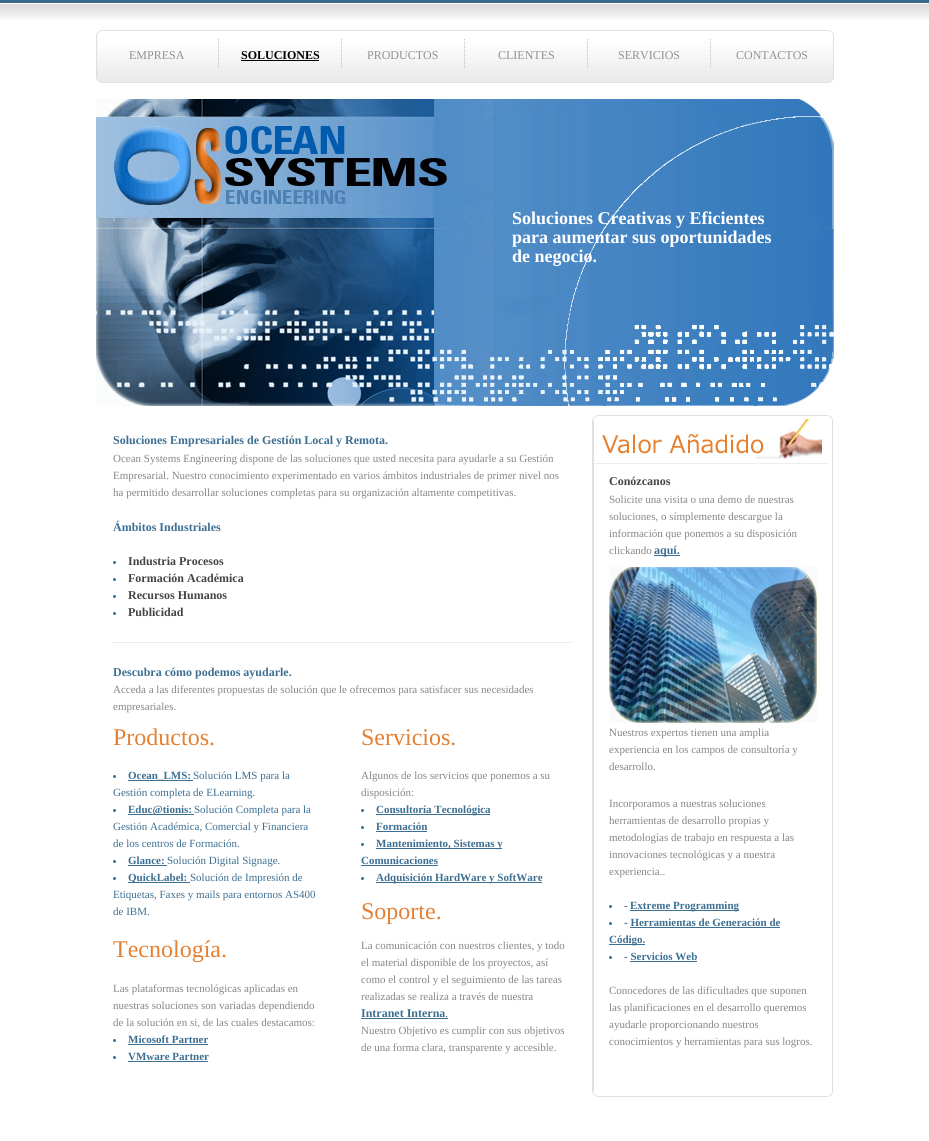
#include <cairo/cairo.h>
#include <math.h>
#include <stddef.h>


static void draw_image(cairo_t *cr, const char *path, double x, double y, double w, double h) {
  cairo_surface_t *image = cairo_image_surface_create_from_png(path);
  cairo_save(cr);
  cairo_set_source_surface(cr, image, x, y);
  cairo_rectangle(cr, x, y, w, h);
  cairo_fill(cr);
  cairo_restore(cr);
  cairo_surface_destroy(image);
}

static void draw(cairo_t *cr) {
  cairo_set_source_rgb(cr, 1, 1, 1);
  cairo_paint(cr);
  draw_image(cr, "images/1.png", 0, 0, 929, 20);
  draw_image(cr, "images/2.png", 102, 30, 727, 53);
  draw_image(cr, "images/3.png", 829, 30, 5, 53);
  draw_image(cr, "images/4.png", 96, 30, 6, 53);
  draw_image(cr, "images/5.png", 218, 39, 1, 29);
  draw_image(cr, "images/5.png", 341, 39, 1, 29);
  cairo_set_source_rgb(cr, 0, 0, 0);
  cairo_rectangle(cr, 241, 60, 78, 1);
  cairo_fill(cr);
  draw_image(cr, "images/5.png", 464, 39, 1, 29);
  draw_image(cr, "images/5.png", 587, 39, 1, 29);
  draw_image(cr, "images/5.png", 710, 39, 1, 29);
  draw_image(cr, "images/6.png", 96, 95, 738, 311);
  draw_image(cr, "images/7.png", 113, 642, 459, 1);
  cairo_set_source_rgb(cr, 61 / 255.0, 111 / 255.0, 146 / 255.0);
  cairo_arc(cr, 114.5, 562.5, 1.5, 0, 2 * M_PI);
  cairo_fill(cr);
  cairo_arc(cr, 114.5, 579.5, 1.5, 0, 2 * M_PI);
  cairo_fill(cr);
  cairo_arc(cr, 114.5, 596.5, 1.5, 0, 2 * M_PI);
  cairo_fill(cr);
  cairo_arc(cr, 114.5, 613.5, 1.5, 0, 2 * M_PI);
  cairo_fill(cr);
  cairo_arc(cr, 114.5, 776.5, 1.5, 0, 2 * M_PI);
  cairo_fill(cr);
  cairo_rectangle(cr, 128, 780, 65, 1);
  cairo_fill(cr);
  cairo_arc(cr, 114.5, 810.5, 1.5, 0, 2 * M_PI);
  cairo_fill(cr);
  cairo_rectangle(cr, 128, 814, 66, 1);
  cairo_fill(cr);
  cairo_arc(cr, 114.5, 861.5, 1.5, 0, 2 * M_PI);
  cairo_fill(cr);
  cairo_rectangle(cr, 128, 865, 39, 1);
  cairo_fill(cr);
  cairo_arc(cr, 114.5, 878.5, 1.5, 0, 2 * M_PI);
  cairo_fill(cr);
  cairo_rectangle(cr, 128, 882, 62, 1);
  cairo_fill(cr);
  cairo_arc(cr, 114.5, 1040.5, 1.5, 0, 2 * M_PI);
  cairo_fill(cr);
  cairo_rectangle(cr, 128, 1044, 80, 1);
  cairo_fill(cr);
  cairo_arc(cr, 114.5, 1057.5, 1.5, 0, 2 * M_PI);
  cairo_fill(cr);
  cairo_rectangle(cr, 128, 1061, 80, 1);
  cairo_fill(cr);
  cairo_arc(cr, 362.5, 810.5, 1.5, 0, 2 * M_PI);
  cairo_fill(cr);
  cairo_rectangle(cr, 376, 814, 114, 1);
  cairo_fill(cr);
  cairo_arc(cr, 362.5, 827.5, 1.5, 0, 2 * M_PI);
  cairo_fill(cr);
  cairo_rectangle(cr, 376, 831, 51, 1);
  cairo_fill(cr);
  cairo_arc(cr, 362.5, 844.5, 1.5, 0, 2 * M_PI);
  cairo_fill(cr);
  cairo_rectangle(cr, 376, 848, 126, 1);
  cairo_fill(cr);
  cairo_rectangle(cr, 361, 865, 77, 1);
  cairo_fill(cr);
  cairo_arc(cr, 362.5, 878.5, 1.5, 0, 2 * M_PI);
  cairo_fill(cr);
  cairo_rectangle(cr, 376, 882, 166, 1);
  cairo_fill(cr);
  cairo_rectangle(cr, 361, 1018, 87, 1);
  cairo_fill(cr);
  cairo_set_source_rgb(cr, 224 / 255.0, 224 / 255.0, 224 / 255.0);
  cairo_rectangle(cr, 592, 415, 241, 1);
  cairo_fill(cr);
  cairo_rectangle(cr, 592, 1096, 241, 1);
  cairo_fill(cr);
  cairo_rectangle(cr, 592, 416, 2, 680);
  cairo_fill(cr);
  cairo_rectangle(cr, 832, 416, 1, 680);
  cairo_fill(cr);
  draw_image(cr, "images/8.png", 592, 415, 6, 6);
  draw_image(cr, "images/9.png", 828, 415, 5, 5);
  draw_image(cr, "images/10.png", 592, 1091, 6, 6);
  draw_image(cr, "images/11.png", 828, 1092, 5, 5);
  cairo_set_source_rgb(cr, 237 / 255.0, 237 / 255.0, 237 / 255.0);
  cairo_rectangle(cr, 594, 463, 235, 1);
  cairo_fill(cr);
  draw_image(cr, "images/12.png", 602, 419, 220, 40);
  cairo_set_source_rgb(cr, 61 / 255.0, 111 / 255.0, 146 / 255.0);
  cairo_rectangle(cr, 654, 555, 26, 1);
  cairo_fill(cr);
  draw_image(cr, "images/13.png", 609, 567, 208, 156);
  cairo_arc(cr, 610.5, 906.5, 1.5, 0, 2 * M_PI);
  cairo_fill(cr);
  cairo_rectangle(cr, 630, 910, 109, 1);
  cairo_fill(cr);
  cairo_arc(cr, 610.5, 923.5, 1.5, 0, 2 * M_PI);
  cairo_fill(cr);
  cairo_rectangle(cr, 630, 927, 150, 1);
  cairo_fill(cr);
  cairo_rectangle(cr, 609, 944, 36, 1);
  cairo_fill(cr);
  cairo_arc(cr, 610.5, 957.5, 1.5, 0, 2 * M_PI);
  cairo_fill(cr);
  cairo_rectangle(cr, 630, 961, 67, 1);
  cairo_fill(cr);
  cairo_select_font_face(cr, "Liberation Serif", CAIRO_FONT_SLANT_NORMAL, CAIRO_FONT_WEIGHT_NORMAL);
  cairo_set_font_size(cr, 12);
  cairo_set_source_rgb(cr, 145 / 255.0, 145 / 255.0, 145 / 255.0);
  cairo_move_to(cr, 129, 59);
  cairo_show_text(cr, "EMPRESA");
  cairo_select_font_face(cr, "Liberation Serif", CAIRO_FONT_SLANT_NORMAL, CAIRO_FONT_WEIGHT_BOLD);
  cairo_set_source_rgb(cr, 0, 0, 0);
  cairo_move_to(cr, 241, 59);
  cairo_show_text(cr, "SOLUCIONES");
  cairo_select_font_face(cr, "Liberation Serif", CAIRO_FONT_SLANT_NORMAL, CAIRO_FONT_WEIGHT_NORMAL);
  cairo_set_source_rgb(cr, 145 / 255.0, 145 / 255.0, 145 / 255.0);
  cairo_move_to(cr, 367, 59);
  cairo_show_text(cr, "PRODUCTOS");
  cairo_move_to(cr, 498, 59);
  cairo_show_text(cr, "CLIENTES");
  cairo_move_to(cr, 618, 59);
  cairo_show_text(cr, "SERVICIOS");
  cairo_move_to(cr, 736, 59);
  cairo_show_text(cr, "CONTACTOS");
  cairo_select_font_face(cr, "Liberation Serif", CAIRO_FONT_SLANT_NORMAL, CAIRO_FONT_WEIGHT_BOLD);
  cairo_set_font_size(cr, 18);
  cairo_set_source_rgb(cr, 1, 1, 1);
  cairo_move_to(cr, 512, 224);
  cairo_show_text(cr, "Soluciones Creativas y Eficientes");
  cairo_move_to(cr, 512, 243);
  cairo_show_text(cr, "para aumentar sus oportunidades");
  cairo_move_to(cr, 512, 262);
  cairo_show_text(cr, "de negocio.");
  cairo_set_font_size(cr, 12);
  cairo_set_source_rgb(cr, 61 / 255.0, 111 / 255.0, 146 / 255.0);
  cairo_move_to(cr, 113, 444);
  cairo_show_text(cr, "Soluciones Empresariales de Gestión Local y Remota.");
  cairo_select_font_face(cr, "Liberation Serif", CAIRO_FONT_SLANT_NORMAL, CAIRO_FONT_WEIGHT_NORMAL);
  cairo_set_font_size(cr, 11);
  cairo_set_source_rgb(cr, 134 / 255.0, 134 / 255.0, 134 / 255.0);
  cairo_move_to(cr, 113, 462);
  cairo_show_text(cr, "Ocean Systems Engineering dispone de las soluciones que usted necesita para ayudarle a su Gestión");
  cairo_move_to(cr, 113, 479);
  cairo_show_text(cr, "Empresarial. Nuestro conocimiento experimentado en varios ámbitos industriales de primer nivel nos");
  cairo_move_to(cr, 113, 496);
  cairo_show_text(cr, "ha permitido desarrollar soluciones completas para su organización altamente competitivas.");
  cairo_select_font_face(cr, "Liberation Serif", CAIRO_FONT_SLANT_NORMAL, CAIRO_FONT_WEIGHT_BOLD);
  cairo_set_font_size(cr, 12);
  cairo_set_source_rgb(cr, 61 / 255.0, 111 / 255.0, 146 / 255.0);
  cairo_move_to(cr, 113, 531);
  cairo_show_text(cr, "Ámbitos Industriales");
  cairo_set_source_rgb(cr, 68 / 255.0, 68 / 255.0, 68 / 255.0);
  cairo_move_to(cr, 128, 565);
  cairo_show_text(cr, "Industria Procesos");
  cairo_move_to(cr, 128, 582);
  cairo_show_text(cr, "Formación Académica");
  cairo_move_to(cr, 128, 599);
  cairo_show_text(cr, "Recursos Humanos");
  cairo_move_to(cr, 128, 616);
  cairo_show_text(cr, "Publicidad");
  cairo_set_source_rgb(cr, 61 / 255.0, 111 / 255.0, 146 / 255.0);
  cairo_move_to(cr, 113, 676);
  cairo_show_text(cr, "Descubra cómo podemos ayudarle.");
  cairo_select_font_face(cr, "Liberation Serif", CAIRO_FONT_SLANT_NORMAL, CAIRO_FONT_WEIGHT_NORMAL);
  cairo_set_font_size(cr, 11);
  cairo_set_source_rgb(cr, 134 / 255.0, 134 / 255.0, 134 / 255.0);
  cairo_move_to(cr, 113, 693);
  cairo_show_text(cr, "Acceda a las diferentes propuestas de solución que le ofrecemos para satisfacer sus necesidades");
  cairo_move_to(cr, 113, 710);
  cairo_show_text(cr, "empresariales.");
  cairo_set_font_size(cr, 24);
  cairo_set_source_rgb(cr, 229 / 255.0, 128 / 255.0, 50 / 255.0);
  cairo_move_to(cr, 113, 745);
  cairo_show_text(cr, "Productos.");
  cairo_select_font_face(cr, "Liberation Serif", CAIRO_FONT_SLANT_NORMAL, CAIRO_FONT_WEIGHT_BOLD);
  cairo_set_font_size(cr, 11);
  cairo_set_source_rgb(cr, 61 / 255.0, 111 / 255.0, 146 / 255.0);
  cairo_move_to(cr, 128, 779);
  cairo_show_text(cr, "Ocean_LMS:");
  cairo_select_font_face(cr, "Liberation Serif", CAIRO_FONT_SLANT_NORMAL, CAIRO_FONT_WEIGHT_NORMAL);
  cairo_move_to(cr, 193, 779);
  cairo_show_text(cr, "Solución LMS para la");
  cairo_move_to(cr, 113, 796);
  cairo_show_text(cr, "Gestión completa de ELearning.");
  cairo_select_font_face(cr, "Liberation Serif", CAIRO_FONT_SLANT_NORMAL, CAIRO_FONT_WEIGHT_BOLD);
  cairo_move_to(cr, 128, 813);
  cairo_show_text(cr, "Educ@tionis:");
  cairo_select_font_face(cr, "Liberation Serif", CAIRO_FONT_SLANT_NORMAL, CAIRO_FONT_WEIGHT_NORMAL);
  cairo_move_to(cr, 194, 813);
  cairo_show_text(cr, "Solución Completa para la");
  cairo_move_to(cr, 113, 830);
  cairo_show_text(cr, "Gestión Académica, Comercial y Financiera");
  cairo_move_to(cr, 113, 847);
  cairo_show_text(cr, "de los centros de Formación.");
  cairo_select_font_face(cr, "Liberation Serif", CAIRO_FONT_SLANT_NORMAL, CAIRO_FONT_WEIGHT_BOLD);
  cairo_move_to(cr, 128, 864);
  cairo_show_text(cr, "Glance:");
  cairo_select_font_face(cr, "Liberation Serif", CAIRO_FONT_SLANT_NORMAL, CAIRO_FONT_WEIGHT_NORMAL);
  cairo_move_to(cr, 167, 864);
  cairo_show_text(cr, "Solución Digital Signage.");
  cairo_select_font_face(cr, "Liberation Serif", CAIRO_FONT_SLANT_NORMAL, CAIRO_FONT_WEIGHT_BOLD);
  cairo_move_to(cr, 128, 881);
  cairo_show_text(cr, "QuickLabel:");
  cairo_select_font_face(cr, "Liberation Serif", CAIRO_FONT_SLANT_NORMAL, CAIRO_FONT_WEIGHT_NORMAL);
  cairo_move_to(cr, 190, 881);
  cairo_show_text(cr, "Solución de Impresión de");
  cairo_move_to(cr, 113, 898);
  cairo_show_text(cr, "Etiquetas, Faxes y mails para entornos AS400");
  cairo_move_to(cr, 113, 915);
  cairo_show_text(cr, "de IBM.");
  cairo_set_font_size(cr, 24);
  cairo_set_source_rgb(cr, 229 / 255.0, 128 / 255.0, 50 / 255.0);
  cairo_move_to(cr, 113, 957);
  cairo_show_text(cr, "Tecnología.");
  cairo_set_font_size(cr, 11);
  cairo_set_source_rgb(cr, 134 / 255.0, 134 / 255.0, 134 / 255.0);
  cairo_move_to(cr, 113, 992);
  cairo_show_text(cr, "Las plataformas tecnológicas aplicadas en");
  cairo_move_to(cr, 113, 1009);
  cairo_show_text(cr, "nuestras soluciones son variadas dependiendo");
  cairo_move_to(cr, 113, 1026);
  cairo_show_text(cr, "de la solución en si, de las cuales destacamos:");
  cairo_select_font_face(cr, "Liberation Serif", CAIRO_FONT_SLANT_NORMAL, CAIRO_FONT_WEIGHT_BOLD);
  cairo_set_source_rgb(cr, 61 / 255.0, 111 / 255.0, 146 / 255.0);
  cairo_move_to(cr, 128, 1043);
  cairo_show_text(cr, "Micosoft Partner");
  cairo_move_to(cr, 128, 1060);
  cairo_show_text(cr, "VMware Partner");
  cairo_select_font_face(cr, "Liberation Serif", CAIRO_FONT_SLANT_NORMAL, CAIRO_FONT_WEIGHT_NORMAL);
  cairo_set_font_size(cr, 24);
  cairo_set_source_rgb(cr, 229 / 255.0, 128 / 255.0, 50 / 255.0);
  cairo_move_to(cr, 361, 745);
  cairo_show_text(cr, "Servicios.");
  cairo_set_font_size(cr, 11);
  cairo_set_source_rgb(cr, 134 / 255.0, 134 / 255.0, 134 / 255.0);
  cairo_move_to(cr, 361, 779);
  cairo_show_text(cr, "Algunos de los servicios que ponemos a su");
  cairo_move_to(cr, 361, 796);
  cairo_show_text(cr, "disposición:");
  cairo_select_font_face(cr, "Liberation Serif", CAIRO_FONT_SLANT_NORMAL, CAIRO_FONT_WEIGHT_BOLD);
  cairo_set_source_rgb(cr, 61 / 255.0, 111 / 255.0, 146 / 255.0);
  cairo_move_to(cr, 376, 813);
  cairo_show_text(cr, "Consultoría Tecnológica");
  cairo_move_to(cr, 376, 830);
  cairo_show_text(cr, "Formación");
  cairo_move_to(cr, 376, 847);
  cairo_show_text(cr, "Mantenimiento, Sistemas y");
  cairo_move_to(cr, 361, 864);
  cairo_show_text(cr, "Comunicaciones");
  cairo_move_to(cr, 376, 881);
  cairo_show_text(cr, "Adquisición HardWare y SoftWare");
  cairo_select_font_face(cr, "Liberation Serif", CAIRO_FONT_SLANT_NORMAL, CAIRO_FONT_WEIGHT_NORMAL);
  cairo_set_font_size(cr, 24);
  cairo_set_source_rgb(cr, 229 / 255.0, 128 / 255.0, 50 / 255.0);
  cairo_move_to(cr, 361, 919);
  cairo_show_text(cr, "Soporte.");
  cairo_set_font_size(cr, 11);
  cairo_set_source_rgb(cr, 134 / 255.0, 134 / 255.0, 134 / 255.0);
  cairo_move_to(cr, 361, 949);
  cairo_show_text(cr, "La comunicación con nuestros clientes, y todo");
  cairo_move_to(cr, 361, 966);
  cairo_show_text(cr, "el material disponible de los proyectos, así");
  cairo_move_to(cr, 361, 983);
  cairo_show_text(cr, "como el control y el seguimiento de las tareas");
  cairo_move_to(cr, 361, 1000);
  cairo_show_text(cr, "realizadas se realiza a través de nuestra");
  cairo_select_font_face(cr, "Liberation Serif", CAIRO_FONT_SLANT_NORMAL, CAIRO_FONT_WEIGHT_BOLD);
  cairo_set_font_size(cr, 12);
  cairo_set_source_rgb(cr, 61 / 255.0, 111 / 255.0, 146 / 255.0);
  cairo_move_to(cr, 361, 1017);
  cairo_show_text(cr, "Intranet Interna");
  cairo_select_font_face(cr, "Liberation Serif", CAIRO_FONT_SLANT_NORMAL, CAIRO_FONT_WEIGHT_NORMAL);
  cairo_move_to(cr, 445, 1017);
  cairo_show_text(cr, ".");
  cairo_set_font_size(cr, 11);
  cairo_set_source_rgb(cr, 134 / 255.0, 134 / 255.0, 134 / 255.0);
  cairo_move_to(cr, 361, 1034);
  cairo_show_text(cr, "Nuestro Objetivo es cumplir con sus objetivos");
  cairo_move_to(cr, 361, 1051);
  cairo_show_text(cr, "de una forma clara, transparente y accesible.");
  cairo_select_font_face(cr, "Liberation Serif", CAIRO_FONT_SLANT_NORMAL, CAIRO_FONT_WEIGHT_BOLD);
  cairo_set_font_size(cr, 12);
  cairo_set_source_rgb(cr, 68 / 255.0, 68 / 255.0, 68 / 255.0);
  cairo_move_to(cr, 609, 485);
  cairo_show_text(cr, "Conózcanos");
  cairo_select_font_face(cr, "Liberation Serif", CAIRO_FONT_SLANT_NORMAL, CAIRO_FONT_WEIGHT_NORMAL);
  cairo_set_font_size(cr, 11);
  cairo_set_source_rgb(cr, 134 / 255.0, 134 / 255.0, 134 / 255.0);
  cairo_move_to(cr, 609, 503);
  cairo_show_text(cr, "Solicite una visita o una demo de nuestras");
  cairo_move_to(cr, 609, 520);
  cairo_show_text(cr, "soluciones, o símplemente descargue la");
  cairo_move_to(cr, 609, 537);
  cairo_show_text(cr, "información que ponemos a su disposición");
  cairo_move_to(cr, 609, 554);
  cairo_show_text(cr, "clickando");
  cairo_select_font_face(cr, "Liberation Serif", CAIRO_FONT_SLANT_NORMAL, CAIRO_FONT_WEIGHT_BOLD);
  cairo_set_font_size(cr, 12);
  cairo_set_source_rgb(cr, 61 / 255.0, 111 / 255.0, 146 / 255.0);
  cairo_move_to(cr, 654, 554);
  cairo_show_text(cr, "aquí.");
  cairo_select_font_face(cr, "Liberation Serif", CAIRO_FONT_SLANT_NORMAL, CAIRO_FONT_WEIGHT_NORMAL);
  cairo_set_font_size(cr, 11);
  cairo_set_source_rgb(cr, 134 / 255.0, 134 / 255.0, 134 / 255.0);
  cairo_move_to(cr, 609, 736);
  cairo_show_text(cr, "Nuestros expertos tienen una amplia");
  cairo_move_to(cr, 609, 753);
  cairo_show_text(cr, "experiencia en los campos de consultoría y");
  cairo_move_to(cr, 609, 770);
  cairo_show_text(cr, "desarrollo.");
  cairo_move_to(cr, 609, 807);
  cairo_show_text(cr, "Incorporamos a nuestras soluciones");
  cairo_move_to(cr, 609, 824);
  cairo_show_text(cr, "herramientas de desarrollo propias y");
  cairo_move_to(cr, 609, 841);
  cairo_show_text(cr, "metodologías de trabajo en respuesta a las");
  cairo_move_to(cr, 609, 858);
  cairo_show_text(cr, "innovaciones tecnológicas y a nuestra");
  cairo_move_to(cr, 609, 875);
  cairo_show_text(cr, "experiencia..");
  cairo_select_font_face(cr, "Liberation Serif", CAIRO_FONT_SLANT_NORMAL, CAIRO_FONT_WEIGHT_BOLD);
  cairo_set_source_rgb(cr, 61 / 255.0, 111 / 255.0, 146 / 255.0);
  cairo_move_to(cr, 624, 909);
  cairo_show_text(cr, "-");
  cairo_move_to(cr, 630, 909);
  cairo_show_text(cr, "Extreme Programming");
  cairo_move_to(cr, 624, 926);
  cairo_show_text(cr, "- Herramientas de Generación de");
  cairo_move_to(cr, 609, 943);
  cairo_show_text(cr, "Código.");
  cairo_move_to(cr, 624, 960);
  cairo_show_text(cr, "- Servicios Web");
  cairo_select_font_face(cr, "Liberation Serif", CAIRO_FONT_SLANT_NORMAL, CAIRO_FONT_WEIGHT_NORMAL);
  cairo_set_source_rgb(cr, 134 / 255.0, 134 / 255.0, 134 / 255.0);
  cairo_move_to(cr, 609, 994);
  cairo_show_text(cr, "Conocedores de las dificultades que suponen");
  cairo_move_to(cr, 609, 1011);
  cairo_show_text(cr, "las planificaciones en el desarrollo queremos");
  cairo_move_to(cr, 609, 1028);
  cairo_show_text(cr, "ayudarle proporcionando nuestros");
  cairo_move_to(cr, 609, 1045);
  cairo_show_text(cr, "conocimientos y herramientas para sus logros.");
}

int main(void) {
  cairo_surface_t *surface = cairo_image_surface_create(CAIRO_FORMAT_RGB24, 929, 1141);
  cairo_t *cr = cairo_create(surface);
  cairo_font_options_t *options = cairo_font_options_create();
  cairo_font_options_set_hint_metrics(options, CAIRO_HINT_METRICS_OFF);
  cairo_font_options_set_hint_style(options, CAIRO_HINT_STYLE_NONE);
  cairo_set_font_options(cr, options);
  cairo_set_miter_limit(cr, 4);
  draw(cr);
  cairo_surface_write_to_png(surface, "out.png");
  cairo_font_options_destroy(options);
  cairo_destroy(cr);
  cairo_surface_destroy(surface);
  return 0;
}
